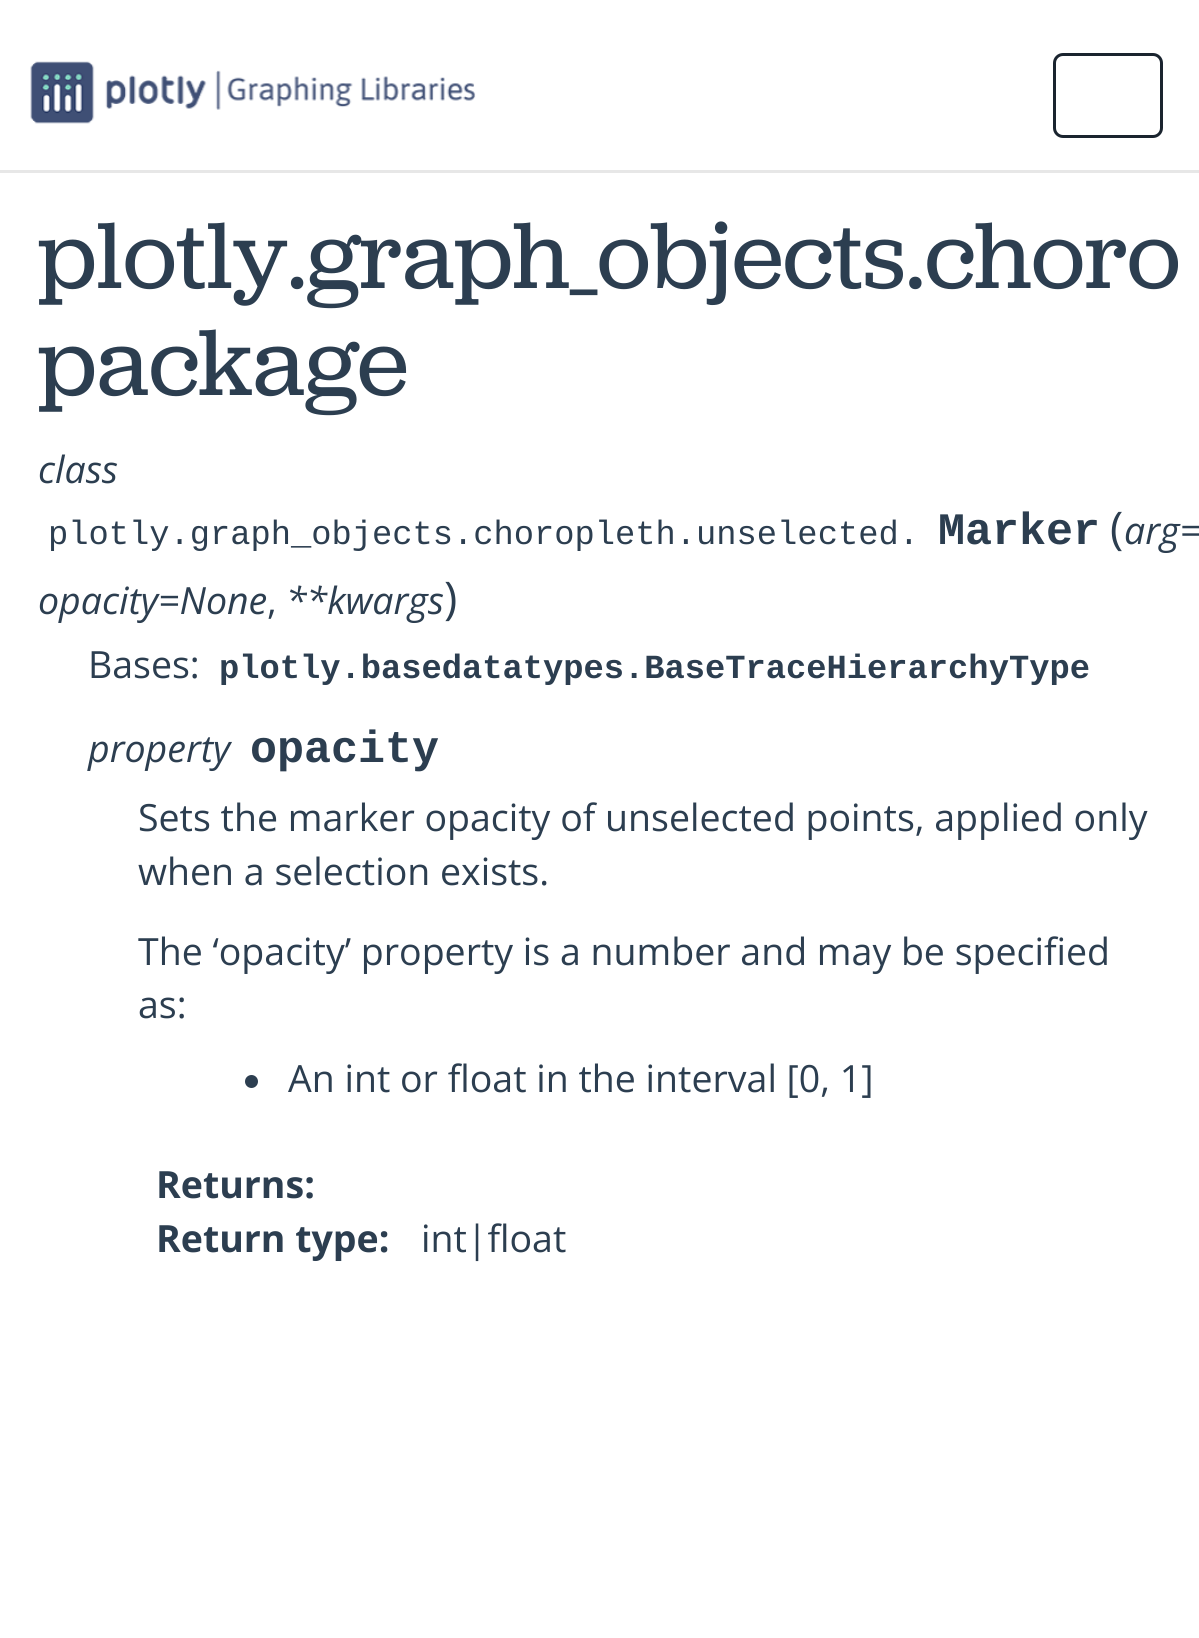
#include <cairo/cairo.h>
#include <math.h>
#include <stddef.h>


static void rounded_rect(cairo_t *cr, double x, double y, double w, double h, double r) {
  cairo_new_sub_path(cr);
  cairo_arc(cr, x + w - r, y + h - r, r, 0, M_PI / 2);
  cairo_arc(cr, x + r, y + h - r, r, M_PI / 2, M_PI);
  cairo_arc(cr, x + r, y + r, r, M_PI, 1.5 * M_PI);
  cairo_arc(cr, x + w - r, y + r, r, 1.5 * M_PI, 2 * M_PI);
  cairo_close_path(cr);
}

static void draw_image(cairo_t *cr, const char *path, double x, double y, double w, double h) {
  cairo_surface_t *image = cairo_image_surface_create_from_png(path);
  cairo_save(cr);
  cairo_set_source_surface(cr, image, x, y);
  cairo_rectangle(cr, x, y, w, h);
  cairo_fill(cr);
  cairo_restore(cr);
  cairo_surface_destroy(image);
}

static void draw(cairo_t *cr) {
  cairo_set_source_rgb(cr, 1, 1, 1);
  cairo_paint(cr);
  cairo_set_source_rgb(cr, 231 / 255.0, 231 / 255.0, 231 / 255.0);
  cairo_rectangle(cr, 0, 170, 1199, 3);
  cairo_fill(cr);
  draw_image(cr, "images/1.png", 30, 61, 446, 63);
  rounded_rect(cr, 1054.5, 54.5, 107, 82, 8.5);
  cairo_set_source_rgb(cr, 26 / 255.0, 36 / 255.0, 47 / 255.0);
  cairo_set_line_width(cr, 3);
  cairo_stroke(cr);
  cairo_set_source_rgb(cr, 44 / 255.0, 62 / 255.0, 80 / 255.0);
  cairo_arc(cr, 251.5, 1081.5, 6.5, 0, 2 * M_PI);
  cairo_fill(cr);
  cairo_select_font_face(cr, "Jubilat", CAIRO_FONT_SLANT_NORMAL, CAIRO_FONT_WEIGHT_NORMAL);
  cairo_set_font_size(cr, 97.5);
  cairo_move_to(cr, 38, 288);
  cairo_show_text(cr, "plotly.graph_objects.choro");
  cairo_move_to(cr, 38, 395);
  cairo_show_text(cr, "package");
  cairo_select_font_face(cr, "Open Sans", CAIRO_FONT_SLANT_ITALIC, CAIRO_FONT_WEIGHT_NORMAL);
  cairo_set_font_size(cr, 37.5);
  cairo_move_to(cr, 38, 483);
  cairo_show_text(cr, "class");
  cairo_select_font_face(cr, "Liberation Mono", CAIRO_FONT_SLANT_NORMAL, CAIRO_FONT_WEIGHT_NORMAL);
  cairo_set_font_size(cr, 33.75);
  cairo_move_to(cr, 48, 544);
  cairo_show_text(cr, "plotly.graph_objects.choropleth.unselected.");
  cairo_select_font_face(cr, "Liberation Mono", CAIRO_FONT_SLANT_NORMAL, CAIRO_FONT_WEIGHT_BOLD);
  cairo_set_font_size(cr, 45);
  cairo_move_to(cr, 938, 544);
  cairo_show_text(cr, "Marker");
  cairo_select_font_face(cr, "Open Sans", CAIRO_FONT_SLANT_NORMAL, CAIRO_FONT_WEIGHT_NORMAL);
  cairo_move_to(cr, 1110, 544);
  cairo_show_text(cr, "(");
  cairo_select_font_face(cr, "Open Sans", CAIRO_FONT_SLANT_ITALIC, CAIRO_FONT_WEIGHT_NORMAL);
  cairo_set_font_size(cr, 37.5);
  cairo_move_to(cr, 1124, 544);
  cairo_show_text(cr, "arg=");
  cairo_move_to(cr, 38, 614);
  cairo_show_text(cr, "opacity=None");
  cairo_select_font_face(cr, "Open Sans", CAIRO_FONT_SLANT_NORMAL, CAIRO_FONT_WEIGHT_NORMAL);
  cairo_move_to(cr, 267, 614);
  cairo_show_text(cr, ",");
  cairo_select_font_face(cr, "Open Sans", CAIRO_FONT_SLANT_ITALIC, CAIRO_FONT_WEIGHT_NORMAL);
  cairo_move_to(cr, 286, 614);
  cairo_show_text(cr, "**kwargs");
  cairo_select_font_face(cr, "Open Sans", CAIRO_FONT_SLANT_NORMAL, CAIRO_FONT_WEIGHT_NORMAL);
  cairo_set_font_size(cr, 45);
  cairo_move_to(cr, 444, 614);
  cairo_show_text(cr, ")");
  cairo_set_font_size(cr, 37.5);
  cairo_move_to(cr, 88, 678);
  cairo_show_text(cr, "Bases:");
  cairo_select_font_face(cr, "Liberation Mono", CAIRO_FONT_SLANT_NORMAL, CAIRO_FONT_WEIGHT_BOLD);
  cairo_set_font_size(cr, 33.75);
  cairo_move_to(cr, 219, 678);
  cairo_show_text(cr, "plotly.basedatatypes.BaseTraceHierarchyType");
  cairo_select_font_face(cr, "Open Sans", CAIRO_FONT_SLANT_ITALIC, CAIRO_FONT_WEIGHT_NORMAL);
  cairo_set_font_size(cr, 37.5);
  cairo_move_to(cr, 88, 762);
  cairo_show_text(cr, "property");
  cairo_select_font_face(cr, "Liberation Mono", CAIRO_FONT_SLANT_NORMAL, CAIRO_FONT_WEIGHT_BOLD);
  cairo_set_font_size(cr, 45);
  cairo_move_to(cr, 250, 762);
  cairo_show_text(cr, "opacity");
  cairo_select_font_face(cr, "Open Sans", CAIRO_FONT_SLANT_NORMAL, CAIRO_FONT_WEIGHT_NORMAL);
  cairo_set_font_size(cr, 37.5);
  cairo_move_to(cr, 138, 831);
  cairo_show_text(cr, "Sets the marker opacity of unselected points, applied only");
  cairo_move_to(cr, 138, 885);
  cairo_show_text(cr, "when a selection exists.");
  cairo_move_to(cr, 138, 965);
  cairo_show_text(cr, "The ‘opacity’ property is a number and may be specified");
  cairo_move_to(cr, 138, 1018);
  cairo_show_text(cr, "as:");
  cairo_move_to(cr, 288, 1092);
  cairo_show_text(cr, "An int or float in the interval [0, 1]");
  cairo_select_font_face(cr, "Open Sans", CAIRO_FONT_SLANT_NORMAL, CAIRO_FONT_WEIGHT_BOLD);
  cairo_move_to(cr, 156, 1198);
  cairo_show_text(cr, "Returns:");
  cairo_move_to(cr, 156, 1252);
  cairo_show_text(cr, "Return type:");
  cairo_select_font_face(cr, "Open Sans", CAIRO_FONT_SLANT_NORMAL, CAIRO_FONT_WEIGHT_NORMAL);
  cairo_move_to(cr, 421, 1252);
  cairo_show_text(cr, "int|float");
}

int main(void) {
  cairo_surface_t *surface = cairo_image_surface_create(CAIRO_FORMAT_RGB24, 1199, 1638);
  cairo_t *cr = cairo_create(surface);
  cairo_font_options_t *options = cairo_font_options_create();
  cairo_font_options_set_hint_metrics(options, CAIRO_HINT_METRICS_OFF);
  cairo_font_options_set_hint_style(options, CAIRO_HINT_STYLE_NONE);
  cairo_set_font_options(cr, options);
  cairo_set_miter_limit(cr, 4);
  draw(cr);
  cairo_surface_write_to_png(surface, "out.png");
  cairo_font_options_destroy(options);
  cairo_destroy(cr);
  cairo_surface_destroy(surface);
  return 0;
}
